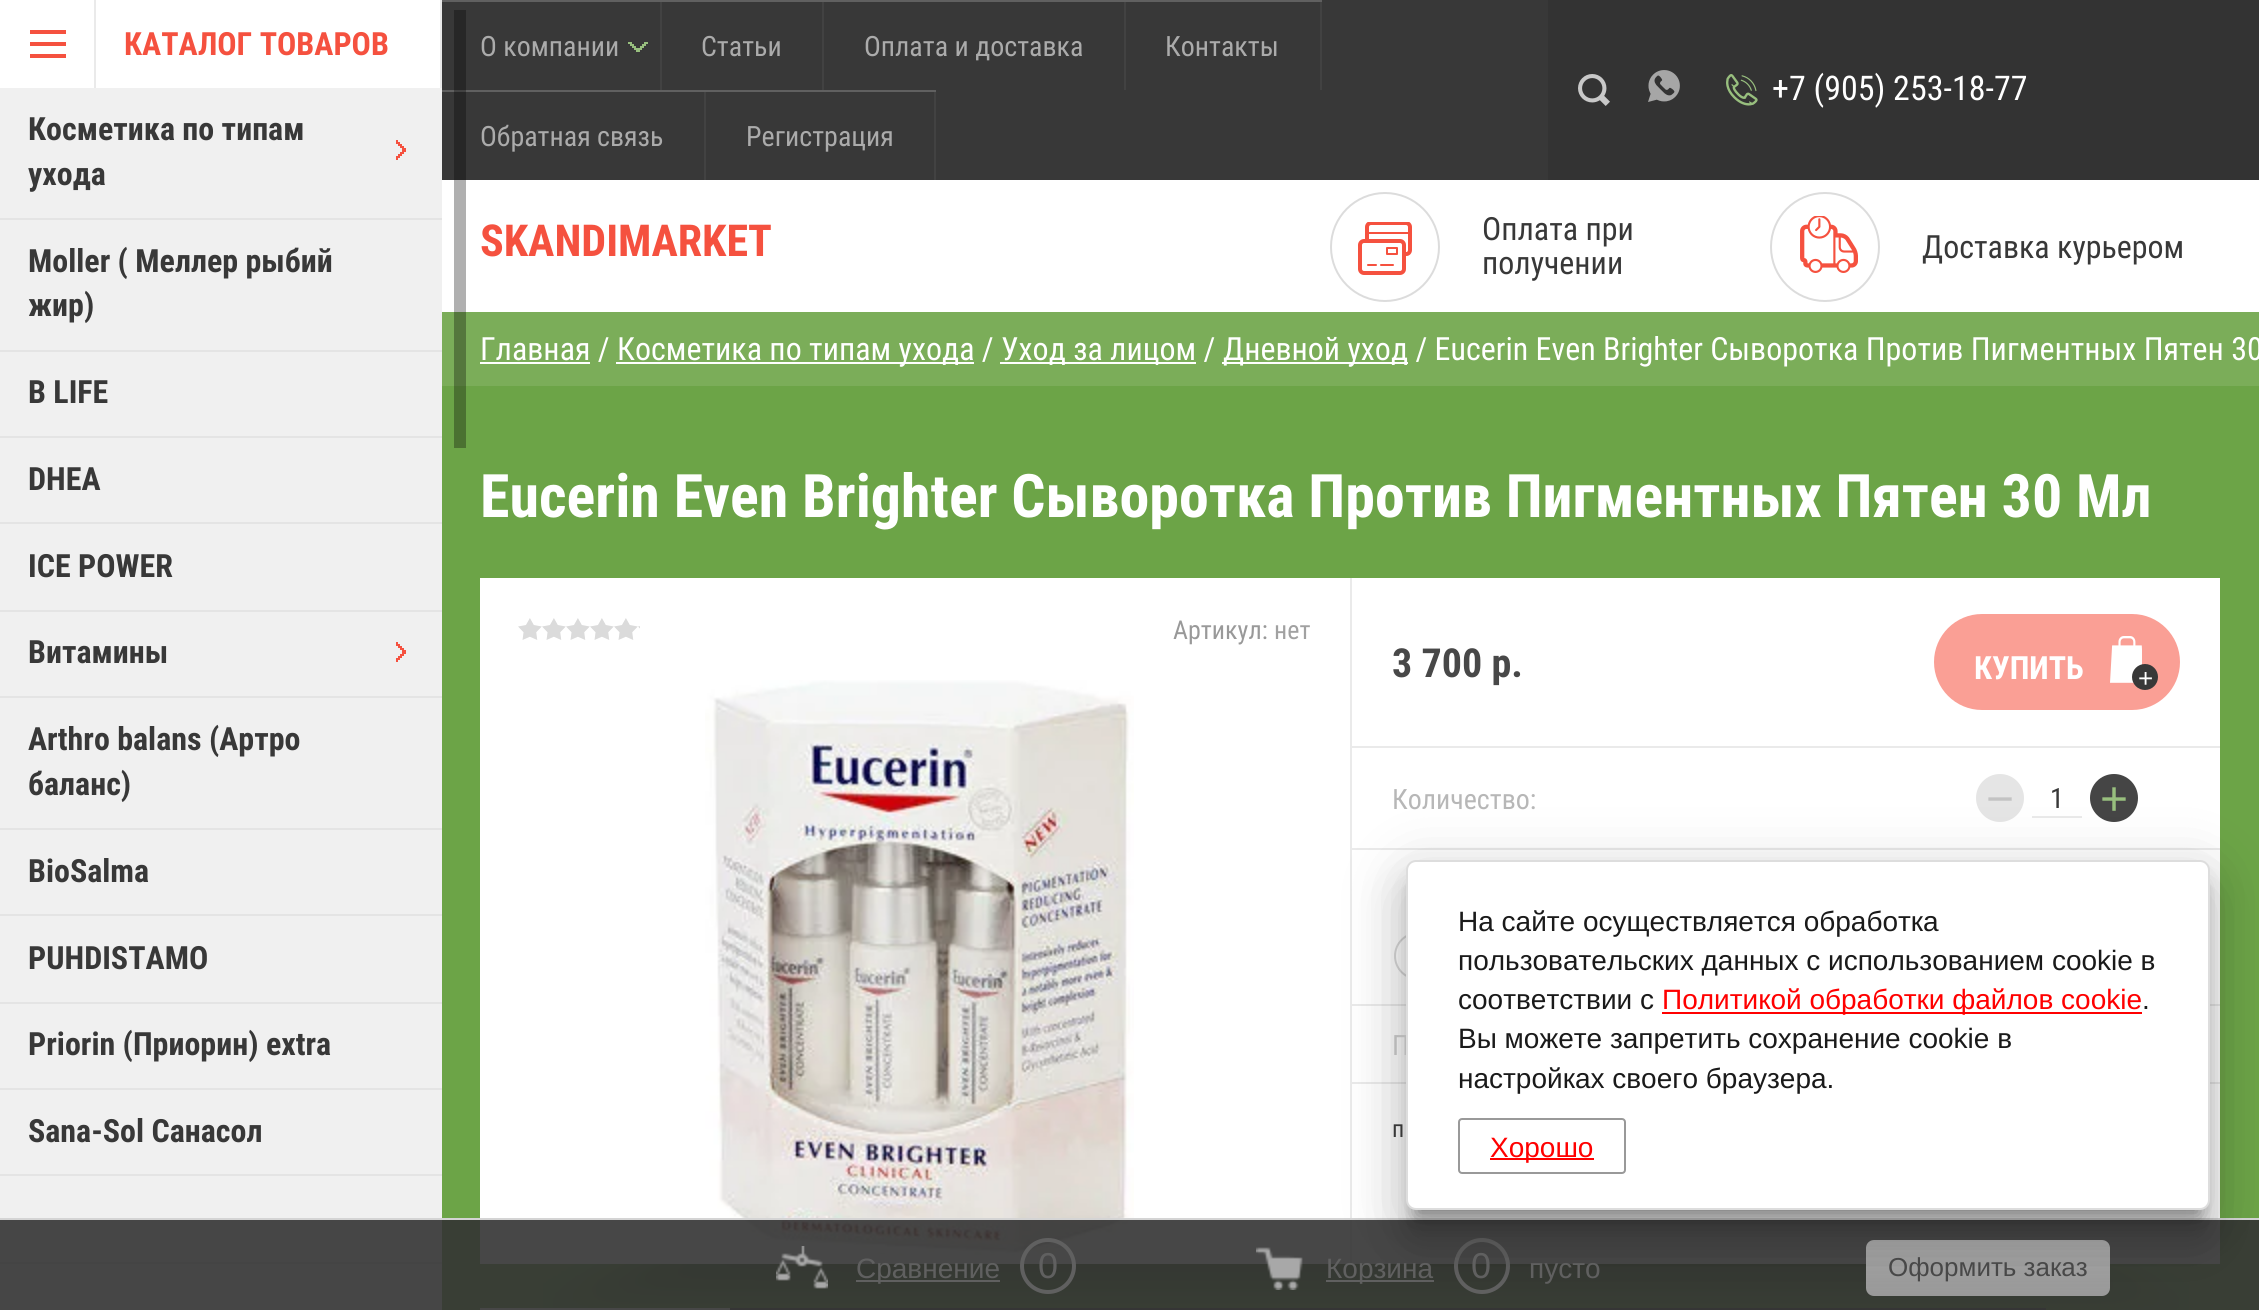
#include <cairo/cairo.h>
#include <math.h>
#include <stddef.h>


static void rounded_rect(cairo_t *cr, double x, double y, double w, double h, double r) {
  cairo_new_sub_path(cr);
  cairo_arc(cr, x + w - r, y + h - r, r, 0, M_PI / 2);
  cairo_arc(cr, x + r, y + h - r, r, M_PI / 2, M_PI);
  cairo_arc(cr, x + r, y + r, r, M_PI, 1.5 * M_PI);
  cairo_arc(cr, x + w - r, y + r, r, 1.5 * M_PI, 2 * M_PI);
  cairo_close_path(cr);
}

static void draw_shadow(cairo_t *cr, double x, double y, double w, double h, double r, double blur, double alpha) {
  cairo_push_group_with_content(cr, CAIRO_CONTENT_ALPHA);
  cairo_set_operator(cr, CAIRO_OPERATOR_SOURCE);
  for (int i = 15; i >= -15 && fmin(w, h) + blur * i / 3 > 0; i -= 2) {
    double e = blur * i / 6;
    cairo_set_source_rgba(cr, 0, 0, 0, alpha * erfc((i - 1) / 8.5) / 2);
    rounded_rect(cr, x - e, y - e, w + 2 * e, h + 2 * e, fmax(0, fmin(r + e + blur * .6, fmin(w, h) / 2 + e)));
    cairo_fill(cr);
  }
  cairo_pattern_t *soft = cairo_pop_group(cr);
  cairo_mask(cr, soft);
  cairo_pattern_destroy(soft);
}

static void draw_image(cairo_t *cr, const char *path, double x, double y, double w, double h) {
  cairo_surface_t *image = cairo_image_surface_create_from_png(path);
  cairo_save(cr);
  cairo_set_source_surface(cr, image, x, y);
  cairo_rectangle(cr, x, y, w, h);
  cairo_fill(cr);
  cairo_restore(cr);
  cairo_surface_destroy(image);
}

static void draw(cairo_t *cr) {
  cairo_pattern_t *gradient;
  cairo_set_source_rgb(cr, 108 / 255.0, 164 / 255.0, 71 / 255.0);
  cairo_paint(cr);
  cairo_set_source_rgb(cr, 75 / 255.0, 113 / 255.0, 49 / 255.0);
  cairo_rectangle(cr, 454, 386, 12, 62);
  cairo_fill(cr);
  cairo_set_source_rgb(cr, 1, 1, 1);
  cairo_rectangle(cr, 0, 0, 440, 88);
  cairo_fill(cr);
  cairo_set_source_rgb(cr, 56 / 255.0, 56 / 255.0, 56 / 255.0);
  cairo_rectangle(cr, 442, 0, 1106, 180);
  cairo_fill(cr);
  cairo_set_source_rgb(cr, 96 / 255.0, 96 / 255.0, 96 / 255.0);
  cairo_rectangle(cr, 440, 0, 882, 2);
  cairo_fill(cr);
  cairo_set_source_rgb(cr, 234 / 255.0, 234 / 255.0, 234 / 255.0);
  cairo_rectangle(cr, 440, 0, 2, 88);
  cairo_fill(cr);
  cairo_set_source_rgb(cr, 245 / 255.0, 81 / 255.0, 63 / 255.0);
  cairo_new_path(cr);
  cairo_move_to(cr, 30, 58);
  cairo_line_to(cr, 30, 54);
  cairo_line_to(cr, 66, 54);
  cairo_line_to(cr, 66, 58);
  cairo_close_path(cr);
  cairo_move_to(cr, 30, 42);
  cairo_line_to(cr, 66, 42);
  cairo_line_to(cr, 66, 46);
  cairo_line_to(cr, 30, 46);
  cairo_close_path(cr);
  cairo_move_to(cr, 30, 30);
  cairo_line_to(cr, 66, 30);
  cairo_line_to(cr, 66, 34);
  cairo_line_to(cr, 30, 34);
  cairo_close_path(cr);
  cairo_fill(cr);
  cairo_set_source_rgb(cr, 234 / 255.0, 234 / 255.0, 234 / 255.0);
  cairo_rectangle(cr, 94, 0, 2, 88);
  cairo_fill(cr);
  cairo_set_source_rgb(cr, 39 / 255.0, 39 / 255.0, 39 / 255.0);
  cairo_rectangle(cr, 454, 10, 12, 170);
  cairo_fill(cr);
  cairo_set_source_rgb(cr, 96 / 255.0, 96 / 255.0, 96 / 255.0);
  cairo_rectangle(cr, 440, 90, 496, 2);
  cairo_fill(cr);
  cairo_set_source_rgb(cr, 240 / 255.0, 240 / 255.0, 240 / 255.0);
  cairo_rectangle(cr, 0, 88, 442, 1222);
  cairo_fill(cr);
  draw_image(cr, "images/1.png", 396, 140, 10, 20);
  cairo_set_source_rgb(cr, 228 / 255.0, 228 / 255.0, 228 / 255.0);
  cairo_rectangle(cr, 0, 218, 442, 2);
  cairo_fill(cr);
  cairo_rectangle(cr, 0, 350, 442, 2);
  cairo_fill(cr);
  cairo_rectangle(cr, 0, 436, 442, 2);
  cairo_fill(cr);
  cairo_rectangle(cr, 0, 522, 442, 2);
  cairo_fill(cr);
  cairo_rectangle(cr, 0, 610, 442, 2);
  cairo_fill(cr);
  draw_image(cr, "images/1.png", 396, 642, 10, 20);
  cairo_rectangle(cr, 0, 696, 442, 2);
  cairo_fill(cr);
  cairo_rectangle(cr, 0, 828, 442, 2);
  cairo_fill(cr);
  cairo_rectangle(cr, 0, 914, 442, 2);
  cairo_fill(cr);
  cairo_rectangle(cr, 0, 1002, 442, 2);
  cairo_fill(cr);
  cairo_rectangle(cr, 0, 1088, 442, 2);
  cairo_fill(cr);
  cairo_rectangle(cr, 0, 1174, 442, 2);
  cairo_fill(cr);
  cairo_rectangle(cr, 0, 1262, 442, 2);
  cairo_fill(cr);
  cairo_set_source_rgb(cr, 1, 1, 1);
  cairo_rectangle(cr, 442, 180, 1817, 132);
  cairo_fill(cr);
  cairo_set_source_rgb(cr, 176 / 255.0, 176 / 255.0, 176 / 255.0);
  cairo_rectangle(cr, 454, 180, 12, 132);
  cairo_fill(cr);
  cairo_set_source_rgb(cr, 51 / 255.0, 51 / 255.0, 51 / 255.0);
  cairo_rectangle(cr, 1548, 0, 711, 180);
  cairo_fill(cr);
  cairo_set_source_rgb(cr, 66 / 255.0, 66 / 255.0, 66 / 255.0);
  cairo_rectangle(cr, 660, 2, 2, 88);
  cairo_fill(cr);
  draw_image(cr, "images/2.png", 628, 42, 20, 10);
  cairo_rectangle(cr, 822, 2, 2, 88);
  cairo_fill(cr);
  cairo_rectangle(cr, 1124, 2, 2, 88);
  cairo_fill(cr);
  cairo_rectangle(cr, 1320, 2, 2, 88);
  cairo_fill(cr);
  cairo_rectangle(cr, 454, 90, 12, 2);
  cairo_fill(cr);
  cairo_rectangle(cr, 704, 92, 2, 88);
  cairo_fill(cr);
  cairo_rectangle(cr, 934, 92, 2, 88);
  cairo_fill(cr);
  draw_image(cr, "images/3.png", 1578, 74, 32, 32);
  draw_image(cr, "images/4.png", 1648, 70, 32, 32);
  draw_image(cr, "images/5.png", 1726, 74, 32, 32);
  cairo_arc(cr, 1385, 247, 54, 0, 2 * M_PI);
  cairo_set_source_rgb(cr, 220 / 255.0, 220 / 255.0, 220 / 255.0);
  cairo_stroke(cr);
  draw_image(cr, "images/6.png", 1358, 222, 54, 53);
  cairo_arc(cr, 1825, 247, 54, 0, 2 * M_PI);
  cairo_stroke(cr);
  draw_image(cr, "images/7.png", 1800, 216, 58, 57);
  cairo_set_source_rgb(cr, 123 / 255.0, 173 / 255.0, 89 / 255.0);
  cairo_rectangle(cr, 442, 312, 1817, 74);
  cairo_fill(cr);
  cairo_set_source_rgb(cr, 85 / 255.0, 119 / 255.0, 61 / 255.0);
  cairo_rectangle(cr, 454, 312, 12, 74);
  cairo_fill(cr);
  cairo_set_source_rgb(cr, 1, 1, 1);
  cairo_rectangle(cr, 480, 362, 110, 2);
  cairo_fill(cr);
  cairo_rectangle(cr, 616, 362, 358, 2);
  cairo_fill(cr);
  cairo_rectangle(cr, 1000, 362, 196, 2);
  cairo_fill(cr);
  cairo_rectangle(cr, 1222, 362, 186, 2);
  cairo_fill(cr);
  cairo_rectangle(cr, 480, 578, 1740, 686);
  cairo_fill(cr);
  cairo_set_source_rgb(cr, 234 / 255.0, 234 / 255.0, 234 / 255.0);
  cairo_rectangle(cr, 1350, 578, 2, 686);
  cairo_fill(cr);
  draw_image(cr, "images/8.png", 518, 618, 122, 22);
  draw_image(cr, "images/9.png", 705, 680, 429, 578);
  cairo_set_source_rgb(cr, 250 / 255.0, 159 / 255.0, 149 / 255.0);
  rounded_rect(cr, 1934, 614, 246, 96, 48);
  cairo_fill(cr);
  draw_image(cr, "images/10.png", 2110, 636, 32, 47);
  cairo_set_source_rgb(cr, 56 / 255.0, 56 / 255.0, 56 / 255.0);
  cairo_arc(cr, 2145, 677, 13, 0, 2 * M_PI);
  cairo_fill(cr);
  cairo_set_source_rgb(cr, 234 / 255.0, 234 / 255.0, 234 / 255.0);
  cairo_rectangle(cr, 1352, 746, 868, 2);
  cairo_fill(cr);
  cairo_set_source_rgb(cr, 229 / 255.0, 229 / 255.0, 229 / 255.0);
  cairo_arc(cr, 2000, 798, 24, 0, 2 * M_PI);
  cairo_fill(cr);
  cairo_set_source_rgb(cr, 234 / 255.0, 234 / 255.0, 234 / 255.0);
  cairo_rectangle(cr, 2032, 816, 50, 2);
  cairo_fill(cr);
  cairo_set_source_rgb(cr, 69 / 255.0, 69 / 255.0, 69 / 255.0);
  cairo_arc(cr, 2114, 798, 24, 0, 2 * M_PI);
  cairo_fill(cr);
  cairo_set_source_rgb(cr, 234 / 255.0, 234 / 255.0, 234 / 255.0);
  cairo_rectangle(cr, 1352, 848, 868, 2);
  cairo_fill(cr);
  cairo_rectangle(cr, 1352, 1004, 868, 2);
  cairo_fill(cr);
  cairo_arc(cr, 1418, 956, 23, 0, 2 * M_PI);
  cairo_set_source_rgb(cr, 217 / 255.0, 217 / 255.0, 217 / 255.0);
  cairo_stroke(cr);
  cairo_set_source_rgb(cr, 234 / 255.0, 234 / 255.0, 234 / 255.0);
  cairo_rectangle(cr, 1352, 1082, 868, 2);
  cairo_fill(cr);
  draw_image(cr, "images/11.png", 543, 1264, 1646, 46);
  cairo_set_source_rgb(cr, 1, 1, 1);
  cairo_rectangle(cr, 480, 1308, 250, 2);
  cairo_fill(cr);
  cairo_set_source_rgb(cr, 69 / 255.0, 69 / 255.0, 69 / 255.0);
  cairo_rectangle(cr, 730, 1308, 1316, 2);
  cairo_fill(cr);
  cairo_set_source_rgba(cr, 51 / 255.0, 51 / 255.0, 51 / 255.0, 0.9);
  cairo_rectangle(cr, 0, 1220, 2259, 90);
  cairo_fill(cr);
  cairo_set_source_rgb(cr, 212 / 255.0, 212 / 255.0, 212 / 255.0);
  cairo_rectangle(cr, 0, 1218, 2259, 2);
  cairo_fill(cr);
  draw_image(cr, "images/12.png", 776, 1246, 52, 43);
  cairo_set_source_rgb(cr, 96 / 255.0, 96 / 255.0, 96 / 255.0);
  cairo_rectangle(cr, 856, 1280, 144, 2);
  cairo_fill(cr);
  cairo_arc(cr, 1048, 1266, 26, 0, 2 * M_PI);
  cairo_set_line_width(cr, 4);
  cairo_stroke(cr);
  draw_image(cr, "images/13.png", 1256, 1247, 47, 43);
  cairo_rectangle(cr, 1326, 1280, 108, 2);
  cairo_fill(cr);
  cairo_arc(cr, 1482, 1266, 26, 0, 2 * M_PI);
  cairo_stroke(cr);
  gradient = cairo_pattern_create_linear(1988, 1240, 1988, 1296);
  cairo_pattern_add_color_stop_rgba(gradient, 0, 170 / 255.0, 170 / 255.0, 170 / 255.0, 1);
  cairo_pattern_add_color_stop_rgba(gradient, 1, 153 / 255.0, 153 / 255.0, 153 / 255.0, 1);
  cairo_set_source(cr, gradient);
  cairo_pattern_destroy(gradient);
  rounded_rect(cr, 1866, 1240, 244, 56, 8);
  cairo_fill(cr);
  cairo_set_source_rgb(cr, 0, 0, 0);
  draw_shadow(cr, 1416, 886, 784, 330, 0, 10, 0.4);
  draw_shadow(cr, 1396, 862, 824, 370, 20, 30, 0.12);
  draw_shadow(cr, 1402, 888, 812, 358, 14, 24, 0.14);
  cairo_select_font_face(cr, "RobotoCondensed", CAIRO_FONT_SLANT_NORMAL, CAIRO_FONT_WEIGHT_BOLD);
  cairo_set_font_size(cr, 32);
  cairo_set_source_rgb(cr, 245 / 255.0, 81 / 255.0, 63 / 255.0);
  cairo_move_to(cr, 124, 55);
  cairo_show_text(cr, "КАТАЛОГ ТОВАРОВ");
  cairo_set_source_rgb(cr, 56 / 255.0, 56 / 255.0, 56 / 255.0);
  cairo_move_to(cr, 28, 140);
  cairo_show_text(cr, "Косметика по типам");
  cairo_move_to(cr, 28, 185);
  cairo_show_text(cr, "ухода");
  cairo_move_to(cr, 28, 272);
  cairo_show_text(cr, "Moller ( Меллер рыбий");
  cairo_move_to(cr, 28, 316);
  cairo_show_text(cr, "жир)");
  cairo_move_to(cr, 28, 403);
  cairo_show_text(cr, "B LIFE");
  cairo_move_to(cr, 28, 490);
  cairo_show_text(cr, "DHEA");
  cairo_move_to(cr, 28, 577);
  cairo_show_text(cr, "ICE POWER");
  cairo_move_to(cr, 28, 663);
  cairo_show_text(cr, "Витамины");
  cairo_move_to(cr, 28, 750);
  cairo_show_text(cr, "Arthro balans (Артро");
  cairo_move_to(cr, 28, 795);
  cairo_show_text(cr, "баланс)");
  cairo_move_to(cr, 28, 882);
  cairo_show_text(cr, "BioSalma");
  cairo_move_to(cr, 28, 969);
  cairo_show_text(cr, "PUHDISTAMO");
  cairo_move_to(cr, 28, 1055);
  cairo_show_text(cr, "Priorin (Приорин) extra");
  cairo_move_to(cr, 28, 1142);
  cairo_show_text(cr, "Sana-Sol Санасол");
  cairo_select_font_face(cr, "RobotoCondensed", CAIRO_FONT_SLANT_NORMAL, CAIRO_FONT_WEIGHT_NORMAL);
  cairo_set_font_size(cr, 28);
  cairo_set_source_rgb(cr, 171 / 255.0, 171 / 255.0, 171 / 255.0);
  cairo_move_to(cr, 480, 56);
  cairo_show_text(cr, "О компании");
  cairo_move_to(cr, 701, 56);
  cairo_show_text(cr, "Статьи");
  cairo_move_to(cr, 864, 56);
  cairo_show_text(cr, "Оплата и доставка");
  cairo_move_to(cr, 1165, 56);
  cairo_show_text(cr, "Контакты");
  cairo_move_to(cr, 480, 146);
  cairo_show_text(cr, "Обратная связь");
  cairo_move_to(cr, 746, 146);
  cairo_show_text(cr, "Регистрация");
  cairo_set_font_size(cr, 34);
  cairo_set_source_rgb(cr, 1, 1, 1);
  cairo_move_to(cr, 1772, 100);
  cairo_show_text(cr, "+7 (905) 253-18-77");
  cairo_select_font_face(cr, "RobotoCondensed", CAIRO_FONT_SLANT_NORMAL, CAIRO_FONT_WEIGHT_BOLD);
  cairo_set_font_size(cr, 44);
  cairo_set_source_rgb(cr, 245 / 255.0, 81 / 255.0, 63 / 255.0);
  cairo_move_to(cr, 480, 256);
  cairo_show_text(cr, "SKANDIMARKET");
  cairo_select_font_face(cr, "RobotoCondensed", CAIRO_FONT_SLANT_NORMAL, CAIRO_FONT_WEIGHT_NORMAL);
  cairo_set_font_size(cr, 32);
  cairo_set_source_rgb(cr, 56 / 255.0, 56 / 255.0, 56 / 255.0);
  cairo_move_to(cr, 1482, 240);
  cairo_show_text(cr, "Оплата при");
  cairo_move_to(cr, 1482, 274);
  cairo_show_text(cr, "получении");
  cairo_move_to(cr, 1922, 258);
  cairo_show_text(cr, "Доставка курьером");
  cairo_set_source_rgb(cr, 1, 1, 1);
  cairo_move_to(cr, 480, 360);
  cairo_show_text(cr, "Главная /");
  cairo_move_to(cr, 617, 360);
  cairo_show_text(cr, "Косметика по типам ухода /");
  cairo_move_to(cr, 1001, 360);
  cairo_show_text(cr, "Уход за лицом /");
  cairo_move_to(cr, 1223, 360);
  cairo_show_text(cr, "Дневной уход / Eucerin Even Brighter Сыворотка Против Пигментных Пятен 30");
  cairo_select_font_face(cr, "RobotoCondensed", CAIRO_FONT_SLANT_NORMAL, CAIRO_FONT_WEIGHT_BOLD);
  cairo_set_font_size(cr, 60);
  cairo_move_to(cr, 480, 517);
  cairo_show_text(cr, "Eucerin Even Brighter Сыворотка Против Пигментных Пятен 30 Мл");
  cairo_select_font_face(cr, "RobotoCondensed", CAIRO_FONT_SLANT_NORMAL, CAIRO_FONT_WEIGHT_NORMAL);
  cairo_set_font_size(cr, 26);
  cairo_set_source_rgb(cr, 153 / 255.0, 153 / 255.0, 153 / 255.0);
  cairo_move_to(cr, 1173, 639);
  cairo_show_text(cr, "Артикул:");
  cairo_set_source_rgb(cr, 161 / 255.0, 161 / 255.0, 161 / 255.0);
  cairo_move_to(cr, 1274, 639);
  cairo_show_text(cr, "нет");
  cairo_select_font_face(cr, "RobotoCondensed", CAIRO_FONT_SLANT_NORMAL, CAIRO_FONT_WEIGHT_BOLD);
  cairo_set_font_size(cr, 40);
  cairo_set_source_rgb(cr, 72 / 255.0, 72 / 255.0, 72 / 255.0);
  cairo_move_to(cr, 1392, 677);
  cairo_show_text(cr, "3 700 р.");
  cairo_set_font_size(cr, 32);
  cairo_set_source_rgb(cr, 1, 1, 1);
  cairo_move_to(cr, 1974, 679);
  cairo_show_text(cr, "КУПИТЬ");
  cairo_select_font_face(cr, "Liberation Sans", CAIRO_FONT_SLANT_NORMAL, CAIRO_FONT_WEIGHT_NORMAL);
  cairo_set_font_size(cr, 26);
  cairo_move_to(cr, 2138, 687);
  cairo_show_text(cr, "+");
  cairo_select_font_face(cr, "RobotoCondensed", CAIRO_FONT_SLANT_NORMAL, CAIRO_FONT_WEIGHT_NORMAL);
  cairo_set_font_size(cr, 28);
  cairo_set_source_rgb(cr, 183 / 255.0, 183 / 255.0, 183 / 255.0);
  cairo_move_to(cr, 1392, 809);
  cairo_show_text(cr, "Количество:");
  cairo_select_font_face(cr, "Liberation Sans", CAIRO_FONT_SLANT_NORMAL, CAIRO_FONT_WEIGHT_NORMAL);
  cairo_set_font_size(cr, 48);
  cairo_set_source_rgb(cr, 195 / 255.0, 195 / 255.0, 195 / 255.0);
  cairo_move_to(cr, 1986, 815);
  cairo_show_text(cr, "−");
  cairo_select_font_face(cr, "RobotoCondensed", CAIRO_FONT_SLANT_NORMAL, CAIRO_FONT_WEIGHT_NORMAL);
  cairo_set_font_size(cr, 28);
  cairo_set_source_rgb(cr, 56 / 255.0, 56 / 255.0, 56 / 255.0);
  cairo_move_to(cr, 2050, 808);
  cairo_show_text(cr, "1");
  cairo_select_font_face(cr, "Liberation Sans", CAIRO_FONT_SLANT_NORMAL, CAIRO_FONT_WEIGHT_NORMAL);
  cairo_set_font_size(cr, 48);
  cairo_set_source_rgb(cr, 152 / 255.0, 191 / 255.0, 126 / 255.0);
  cairo_move_to(cr, 2100, 815);
  cairo_show_text(cr, "+");
  cairo_select_font_face(cr, "RobotoCondensed", CAIRO_FONT_SLANT_NORMAL, CAIRO_FONT_WEIGHT_NORMAL);
  cairo_set_font_size(cr, 28);
  cairo_set_source_rgb(cr, 183 / 255.0, 183 / 255.0, 183 / 255.0);
  cairo_move_to(cr, 1392, 1055);
  cairo_show_text(cr, "П");
  cairo_set_font_size(cr, 24);
  cairo_set_source_rgb(cr, 56 / 255.0, 56 / 255.0, 56 / 255.0);
  cairo_move_to(cr, 1392, 1137);
  cairo_show_text(cr, "п");
  cairo_select_font_face(cr, "Liberation Sans", CAIRO_FONT_SLANT_NORMAL, CAIRO_FONT_WEIGHT_NORMAL);
  cairo_set_font_size(cr, 28);
  cairo_set_source_rgb(cr, 96 / 255.0, 96 / 255.0, 96 / 255.0);
  cairo_move_to(cr, 856, 1278);
  cairo_show_text(cr, "Сравнение");
  cairo_set_font_size(cr, 36);
  cairo_move_to(cr, 1038, 1278);
  cairo_show_text(cr, "0");
  cairo_set_font_size(cr, 28);
  cairo_move_to(cr, 1326, 1278);
  cairo_show_text(cr, "Корзина");
  cairo_set_font_size(cr, 36);
  cairo_move_to(cr, 1471, 1278);
  cairo_show_text(cr, "0");
  cairo_set_font_size(cr, 28);
  cairo_move_to(cr, 1529, 1278);
  cairo_show_text(cr, "пусто");
  cairo_set_font_size(cr, 26);
  cairo_set_source_rgb(cr, 72 / 255.0, 72 / 255.0, 72 / 255.0);
  cairo_move_to(cr, 1888, 1276);
  cairo_show_text(cr, "Оформить заказ");
  cairo_set_source_rgb(cr, 1, 1, 1);
  rounded_rect(cr, 1407, 861, 802, 348, 9);
  cairo_fill_preserve(cr);
  cairo_set_source_rgb(cr, 221 / 255.0, 221 / 255.0, 221 / 255.0);
  cairo_set_line_width(cr, 2);
  cairo_stroke(cr);
  cairo_set_font_size(cr, 28);
  cairo_set_source_rgb(cr, 26 / 255.0, 26 / 255.0, 26 / 255.0);
  cairo_move_to(cr, 1458, 931);
  cairo_show_text(cr, "На сайте осуществляется обработка");
  cairo_move_to(cr, 1458, 970);
  cairo_show_text(cr, "пользовательских данных с использованием cookie в");
  cairo_move_to(cr, 1458, 1009);
  cairo_show_text(cr, "соответствии с");
  cairo_set_source_rgb(cr, 1, 0, 0);
  cairo_rectangle(cr, 1662, 1012, 480, 2);
  cairo_fill(cr);
  cairo_move_to(cr, 1662, 1009);
  cairo_show_text(cr, "Политикой обработки файлов cookie");
  cairo_set_source_rgb(cr, 26 / 255.0, 26 / 255.0, 26 / 255.0);
  cairo_move_to(cr, 2142, 1009);
  cairo_show_text(cr, ".");
  cairo_move_to(cr, 1458, 1048);
  cairo_show_text(cr, "Вы можете запретить сохранение cookie в");
  cairo_move_to(cr, 1458, 1088);
  cairo_show_text(cr, "настройках своего браузера.");
  rounded_rect(cr, 1459, 1119, 166, 54, 3);
  cairo_set_source_rgb(cr, 153 / 255.0, 153 / 255.0, 153 / 255.0);
  cairo_stroke(cr);
  cairo_set_source_rgb(cr, 1, 0, 0);
  cairo_rectangle(cr, 1490, 1158, 104, 2);
  cairo_fill(cr);
  cairo_move_to(cr, 1490, 1157);
  cairo_show_text(cr, "Хорошо");
}

int main(void) {
  cairo_surface_t *surface = cairo_image_surface_create(CAIRO_FORMAT_RGB24, 2259, 1310);
  cairo_t *cr = cairo_create(surface);
  cairo_font_options_t *options = cairo_font_options_create();
  cairo_font_options_set_hint_metrics(options, CAIRO_HINT_METRICS_OFF);
  cairo_font_options_set_hint_style(options, CAIRO_HINT_STYLE_NONE);
  cairo_set_font_options(cr, options);
  cairo_set_miter_limit(cr, 4);
  draw(cr);
  cairo_surface_write_to_png(surface, "out.png");
  cairo_font_options_destroy(options);
  cairo_destroy(cr);
  cairo_surface_destroy(surface);
  return 0;
}
